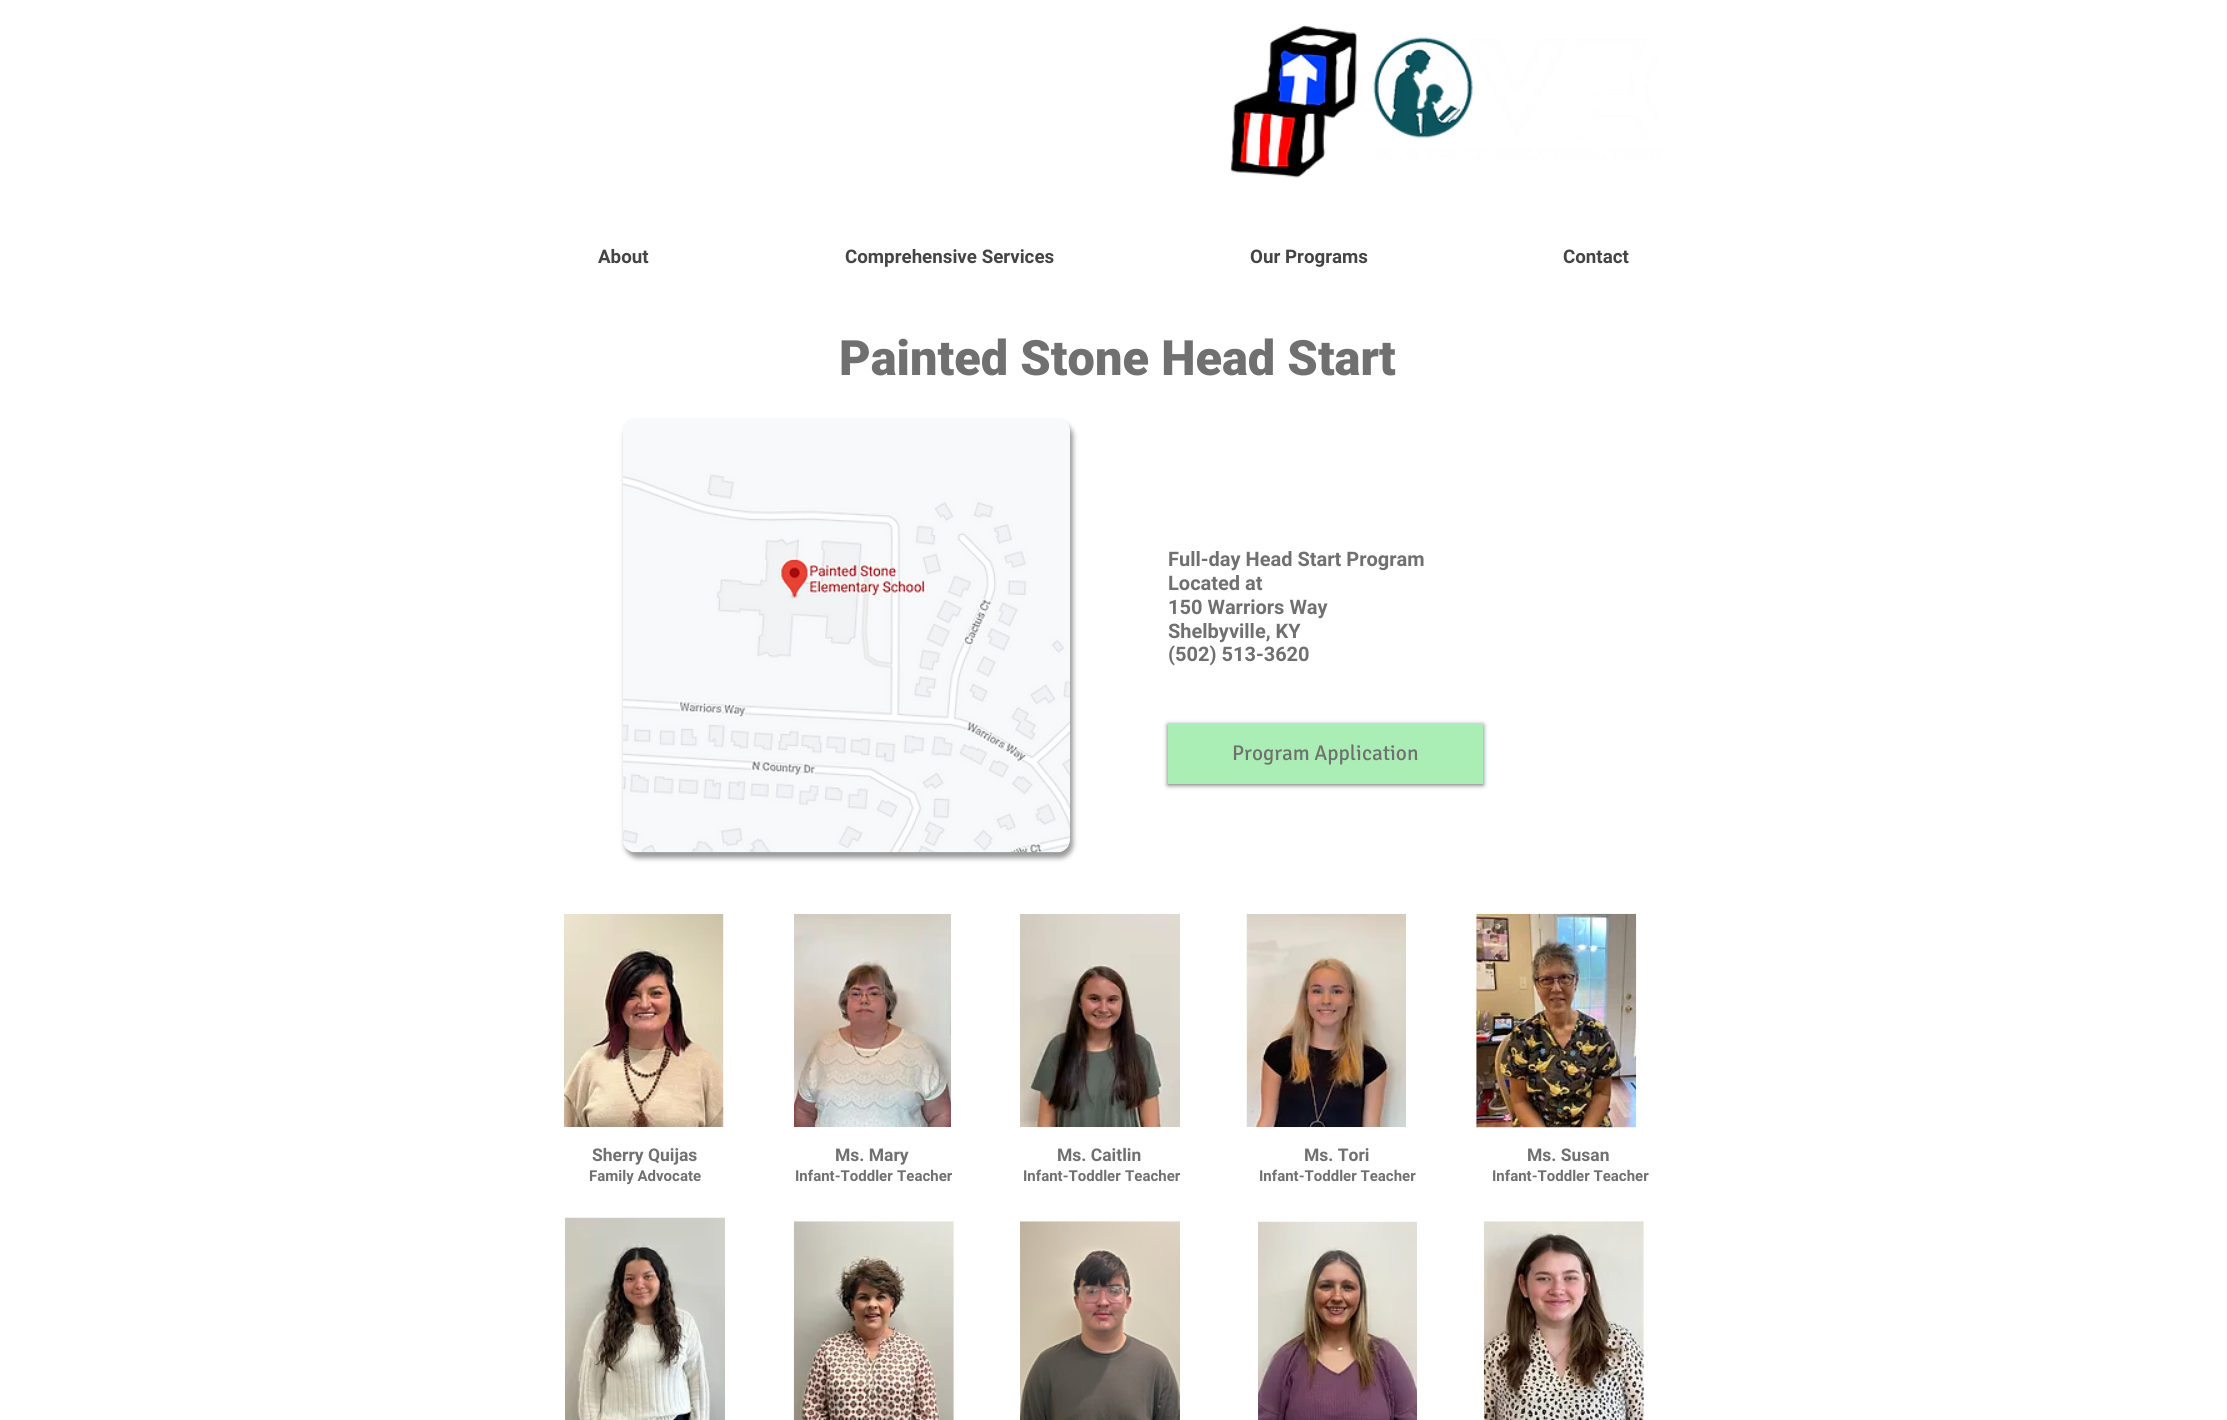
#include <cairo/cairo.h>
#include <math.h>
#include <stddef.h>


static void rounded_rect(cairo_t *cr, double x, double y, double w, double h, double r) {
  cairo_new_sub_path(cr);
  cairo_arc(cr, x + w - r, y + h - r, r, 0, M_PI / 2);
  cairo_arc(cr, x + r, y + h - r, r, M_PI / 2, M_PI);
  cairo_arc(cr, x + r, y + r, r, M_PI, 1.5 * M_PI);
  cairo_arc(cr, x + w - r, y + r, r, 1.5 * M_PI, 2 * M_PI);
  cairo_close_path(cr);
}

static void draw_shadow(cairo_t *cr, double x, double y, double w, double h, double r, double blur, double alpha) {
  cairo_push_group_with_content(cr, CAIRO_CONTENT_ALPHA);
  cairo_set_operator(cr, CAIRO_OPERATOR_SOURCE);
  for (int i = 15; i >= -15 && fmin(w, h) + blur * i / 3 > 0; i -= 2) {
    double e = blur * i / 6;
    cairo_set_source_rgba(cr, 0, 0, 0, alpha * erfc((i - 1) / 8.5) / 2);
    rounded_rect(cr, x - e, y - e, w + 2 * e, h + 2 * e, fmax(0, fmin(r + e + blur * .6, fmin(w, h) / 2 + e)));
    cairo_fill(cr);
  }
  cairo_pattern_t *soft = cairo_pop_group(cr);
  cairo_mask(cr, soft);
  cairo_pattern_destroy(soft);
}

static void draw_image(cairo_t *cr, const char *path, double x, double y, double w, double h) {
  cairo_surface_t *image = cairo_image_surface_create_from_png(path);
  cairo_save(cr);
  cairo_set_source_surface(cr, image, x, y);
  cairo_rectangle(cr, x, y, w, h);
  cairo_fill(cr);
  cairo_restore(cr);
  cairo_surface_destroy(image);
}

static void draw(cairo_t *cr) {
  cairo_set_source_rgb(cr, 1, 1, 1);
  cairo_paint(cr);
  draw_image(cr, "images/1.png", 1230, 25, 430, 153);
  cairo_set_source_rgb(cr, 0, 0, 0);
  draw_shadow(cr, 625, 423, 448, 435, 13, 2.5, 0.4);
  draw_image(cr, "images/2.png", 623, 418, 447, 435);
  cairo_save(cr);
  cairo_set_fill_rule(cr, CAIRO_FILL_RULE_EVEN_ODD);
  cairo_new_path(cr);
  cairo_move_to(cr, 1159, 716);
  cairo_line_to(cr, 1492, 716);
  cairo_line_to(cr, 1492, 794);
  cairo_line_to(cr, 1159, 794);
  cairo_close_path(cr);
  cairo_move_to(cr, 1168, 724);
  cairo_line_to(cr, 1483, 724);
  cairo_line_to(cr, 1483, 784);
  cairo_line_to(cr, 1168, 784);
  cairo_close_path(cr);
  cairo_clip(cr);
  draw_shadow(cr, 1168, 725, 315, 60, 0, 2.5, 0.6);
  cairo_restore(cr);
  cairo_set_source_rgba(cr, 119 / 255.0, 228 / 255.0, 135 / 255.0, 0.61);
  cairo_rectangle(cr, 1168, 724, 315, 60);
  cairo_fill(cr);
  draw_image(cr, "images/3.png", 564, 914, 160, 214);
  draw_image(cr, "images/4.png", 794, 914, 157, 214);
  draw_image(cr, "images/5.png", 1020, 914, 160, 214);
  draw_image(cr, "images/6.png", 1246, 914, 160, 214);
  draw_image(cr, "images/7.png", 1476, 913, 161, 215);
  draw_image(cr, "images/8.png", 565, 1217, 160, 203);
  draw_image(cr, "images/9.png", 793, 1221, 161, 199);
  draw_image(cr, "images/10.png", 1020, 1221, 160, 199);
  draw_image(cr, "images/11.png", 1258, 1221, 160, 199);
  draw_image(cr, "images/12.png", 1483, 1221, 161, 199);
  cairo_select_font_face(cr, "Roboto", CAIRO_FONT_SLANT_NORMAL, CAIRO_FONT_WEIGHT_BOLD);
  cairo_set_font_size(cr, 18.75);
  cairo_set_source_rgb(cr, 68 / 255.0, 68 / 255.0, 68 / 255.0);
  cairo_move_to(cr, 598, 263);
  cairo_show_text(cr, "About");
  cairo_move_to(cr, 845, 263);
  cairo_show_text(cr, "Comprehensive Services");
  cairo_move_to(cr, 1250, 263);
  cairo_show_text(cr, "Our Programs");
  cairo_move_to(cr, 1563, 263);
  cairo_show_text(cr, "Contact");
  cairo_select_font_face(cr, "Roboto Black", CAIRO_FONT_SLANT_NORMAL, CAIRO_FONT_WEIGHT_NORMAL);
  cairo_set_font_size(cr, 48.75);
  cairo_set_source_rgb(cr, 113 / 255.0, 112 / 255.0, 112 / 255.0);
  cairo_move_to(cr, 839, 375);
  cairo_show_text(cr, "Painted Stone Head Start");
  cairo_select_font_face(cr, "Roboto", CAIRO_FONT_SLANT_NORMAL, CAIRO_FONT_WEIGHT_BOLD);
  cairo_set_font_size(cr, 20);
  cairo_move_to(cr, 1168, 566);
  cairo_show_text(cr, "Full-day Head Start Program");
  cairo_move_to(cr, 1168, 590);
  cairo_show_text(cr, "Located at");
  cairo_move_to(cr, 1168, 614);
  cairo_show_text(cr, "150 Warriors Way");
  cairo_move_to(cr, 1168, 638);
  cairo_show_text(cr, "Shelbyville, KY");
  cairo_move_to(cr, 1168, 661);
  cairo_show_text(cr, "(502) 513-3620");
  cairo_select_font_face(cr, "Signika", CAIRO_FONT_SLANT_NORMAL, CAIRO_FONT_WEIGHT_NORMAL);
  cairo_set_font_size(cr, 21.25);
  cairo_move_to(cr, 1232, 760);
  cairo_show_text(cr, "Program Application");
  cairo_select_font_face(cr, "Roboto", CAIRO_FONT_SLANT_NORMAL, CAIRO_FONT_WEIGHT_BOLD);
  cairo_set_font_size(cr, 17.5);
  cairo_move_to(cr, 592, 1161);
  cairo_show_text(cr, "Sherry Quijas");
  cairo_set_font_size(cr, 15);
  cairo_move_to(cr, 589, 1181);
  cairo_show_text(cr, "Family Advocate");
  cairo_set_font_size(cr, 17.5);
  cairo_move_to(cr, 835, 1161);
  cairo_show_text(cr, "Ms. Mary");
  cairo_set_font_size(cr, 15);
  cairo_move_to(cr, 795, 1181);
  cairo_show_text(cr, "Infant-Toddler");
  cairo_move_to(cr, 897, 1181);
  cairo_show_text(cr, "Teacher");
  cairo_set_font_size(cr, 17.5);
  cairo_move_to(cr, 1057, 1161);
  cairo_show_text(cr, "Ms. Caitlin");
  cairo_set_font_size(cr, 15);
  cairo_move_to(cr, 1023, 1181);
  cairo_show_text(cr, "Infant-Toddler");
  cairo_move_to(cr, 1125, 1181);
  cairo_show_text(cr, "Teacher");
  cairo_set_font_size(cr, 17.5);
  cairo_move_to(cr, 1304, 1161);
  cairo_show_text(cr, "Ms. Tori");
  cairo_set_font_size(cr, 15);
  cairo_move_to(cr, 1259, 1181);
  cairo_show_text(cr, "Infant-Toddler Teacher");
  cairo_set_font_size(cr, 17.5);
  cairo_move_to(cr, 1527, 1161);
  cairo_show_text(cr, "Ms. Susan");
  cairo_set_font_size(cr, 15);
  cairo_move_to(cr, 1492, 1181);
  cairo_show_text(cr, "Infant-Toddler Teacher");
}

int main(void) {
  cairo_surface_t *surface = cairo_image_surface_create(CAIRO_FORMAT_RGB24, 2227, 1420);
  cairo_t *cr = cairo_create(surface);
  cairo_font_options_t *options = cairo_font_options_create();
  cairo_font_options_set_hint_metrics(options, CAIRO_HINT_METRICS_OFF);
  cairo_font_options_set_hint_style(options, CAIRO_HINT_STYLE_NONE);
  cairo_set_font_options(cr, options);
  cairo_set_miter_limit(cr, 4);
  draw(cr);
  cairo_surface_write_to_png(surface, "out.png");
  cairo_font_options_destroy(options);
  cairo_destroy(cr);
  cairo_surface_destroy(surface);
  return 0;
}
